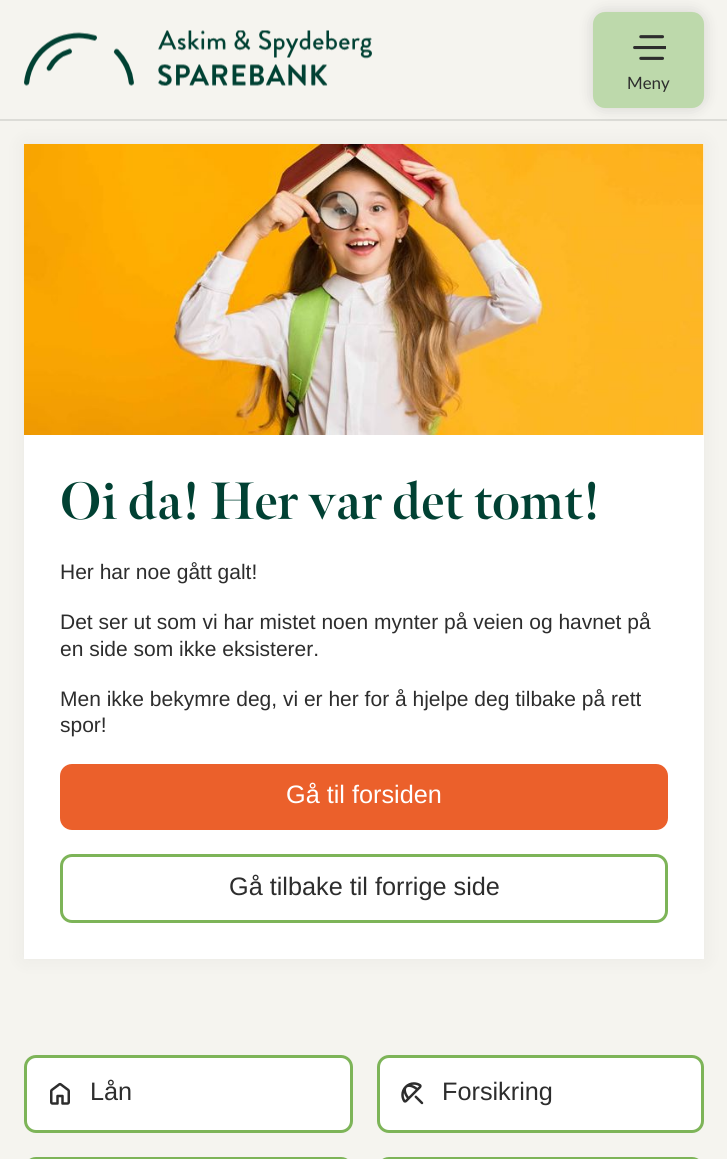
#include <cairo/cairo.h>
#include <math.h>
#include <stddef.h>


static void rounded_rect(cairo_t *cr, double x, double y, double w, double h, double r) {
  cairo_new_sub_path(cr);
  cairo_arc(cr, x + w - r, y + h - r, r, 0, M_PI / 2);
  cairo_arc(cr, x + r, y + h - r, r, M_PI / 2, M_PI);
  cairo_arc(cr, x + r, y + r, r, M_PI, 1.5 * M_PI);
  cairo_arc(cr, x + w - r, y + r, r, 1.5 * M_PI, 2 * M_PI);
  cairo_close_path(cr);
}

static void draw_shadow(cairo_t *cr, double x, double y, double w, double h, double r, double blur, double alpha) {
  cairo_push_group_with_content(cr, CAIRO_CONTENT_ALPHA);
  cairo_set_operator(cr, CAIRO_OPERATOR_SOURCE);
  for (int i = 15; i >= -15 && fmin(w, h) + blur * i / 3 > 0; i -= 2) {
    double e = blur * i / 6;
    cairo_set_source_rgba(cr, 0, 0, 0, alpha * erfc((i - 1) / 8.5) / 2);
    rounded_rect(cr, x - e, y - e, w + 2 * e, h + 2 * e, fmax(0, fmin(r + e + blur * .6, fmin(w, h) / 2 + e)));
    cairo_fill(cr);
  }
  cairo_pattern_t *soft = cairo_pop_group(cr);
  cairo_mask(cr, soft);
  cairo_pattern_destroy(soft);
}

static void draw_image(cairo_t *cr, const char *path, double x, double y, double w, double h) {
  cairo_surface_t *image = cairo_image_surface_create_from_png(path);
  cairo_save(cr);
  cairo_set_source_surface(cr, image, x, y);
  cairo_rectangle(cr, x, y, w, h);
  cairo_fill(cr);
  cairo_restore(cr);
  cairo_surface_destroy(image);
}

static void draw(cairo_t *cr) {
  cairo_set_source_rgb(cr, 245 / 255.0, 244 / 255.0, 239 / 255.0);
  cairo_paint(cr);
  cairo_set_source_rgb(cr, 0, 0, 0);
  draw_shadow(cr, 24, 144, 680, 815, 0, 10, 0.05);
  cairo_set_source_rgb(cr, 220 / 255.0, 220 / 255.0, 215 / 255.0);
  cairo_rectangle(cr, 0, 119, 727, 2);
  cairo_fill(cr);
  draw_image(cr, "images/1.png", 24, 30, 348, 56);
  cairo_set_source_rgb(cr, 0, 0, 0);
  draw_shadow(cr, 593, 12, 111, 96, 12, 7.5, 0.14);
  cairo_set_source_rgb(cr, 189 / 255.0, 217 / 255.0, 171 / 255.0);
  rounded_rect(cr, 593, 12, 111, 96, 12);
  cairo_fill(cr);
  draw_image(cr, "images/2.png", 633, 35, 33, 25);
  cairo_set_source_rgb(cr, 1, 1, 1);
  cairo_rectangle(cr, 24, 144, 680, 815);
  cairo_fill(cr);
  draw_image(cr, "images/3.png", 24, 144, 680, 291);
  cairo_set_source_rgb(cr, 235 / 255.0, 96 / 255.0, 43 / 255.0);
  rounded_rect(cr, 60, 764, 608, 66, 12);
  cairo_fill(cr);
  rounded_rect(cr, 61.5, 855.5, 605, 66, 10.5);
  cairo_set_source_rgb(cr, 125 / 255.0, 180 / 255.0, 88 / 255.0);
  cairo_set_line_width(cr, 3);
  cairo_stroke(cr);
  cairo_set_source_rgb(cr, 1, 1, 1);
  rounded_rect(cr, 25.5, 1056.5, 326, 75, 10.5);
  cairo_fill_preserve(cr);
  cairo_set_source_rgb(cr, 125 / 255.0, 180 / 255.0, 88 / 255.0);
  cairo_stroke(cr);
  draw_image(cr, "images/4.png", 50, 1082, 20, 23);
  cairo_set_source_rgb(cr, 1, 1, 1);
  rounded_rect(cr, 378.5, 1056.5, 324, 75, 10.5);
  cairo_fill_preserve(cr);
  cairo_set_source_rgb(cr, 125 / 255.0, 180 / 255.0, 88 / 255.0);
  cairo_stroke(cr);
  draw_image(cr, "images/5.png", 401, 1082, 23, 23);
  rounded_rect(cr, 25.5, 1158.5, 326, 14, 10.5);
  cairo_stroke(cr);
  rounded_rect(cr, 378.5, 1158.5, 324, 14, 10.5);
  cairo_stroke(cr);
  cairo_select_font_face(cr, "Lato", CAIRO_FONT_SLANT_NORMAL, CAIRO_FONT_WEIGHT_NORMAL);
  cairo_set_font_size(cr, 17);
  cairo_set_source_rgb(cr, 45 / 255.0, 45 / 255.0, 45 / 255.0);
  cairo_move_to(cr, 627, 89);
  cairo_show_text(cr, "Meny");
  cairo_select_font_face(cr, "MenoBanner", CAIRO_FONT_SLANT_NORMAL, CAIRO_FONT_WEIGHT_BOLD);
  cairo_set_font_size(cr, 52.5);
  cairo_set_source_rgb(cr, 1 / 255.0, 65 / 255.0, 51 / 255.0);
  cairo_move_to(cr, 60, 519);
  cairo_show_text(cr, "Oi da! Her var det tomt!");
  cairo_select_font_face(cr, "Liberation Sans", CAIRO_FONT_SLANT_NORMAL, CAIRO_FONT_WEIGHT_NORMAL);
  cairo_set_font_size(cr, 21);
  cairo_set_source_rgb(cr, 45 / 255.0, 45 / 255.0, 45 / 255.0);
  cairo_move_to(cr, 60, 579);
  cairo_show_text(cr, "Her har noe gått galt!");
  cairo_move_to(cr, 60, 629);
  cairo_show_text(cr, "Det ser ut som vi har mistet noen mynter på veien og havnet på");
  cairo_move_to(cr, 60, 656);
  cairo_show_text(cr, "en side som ikke eksisterer.");
  cairo_move_to(cr, 60, 706);
  cairo_show_text(cr, "Men ikke bekymre deg, vi er her for å hjelpe deg tilbake på rett");
  cairo_move_to(cr, 60, 732);
  cairo_show_text(cr, "spor!");
  cairo_set_font_size(cr, 25.25);
  cairo_set_source_rgb(cr, 1, 1, 1);
  cairo_move_to(cr, 286, 803);
  cairo_show_text(cr, "Gå til forsiden");
  cairo_set_source_rgb(cr, 45 / 255.0, 45 / 255.0, 45 / 255.0);
  cairo_move_to(cr, 229, 895);
  cairo_show_text(cr, "Gå tilbake til forrige side");
  cairo_move_to(cr, 90, 1100);
  cairo_show_text(cr, "Lån");
  cairo_move_to(cr, 442, 1100);
  cairo_show_text(cr, "Forsikring");
}

int main(void) {
  cairo_surface_t *surface = cairo_image_surface_create(CAIRO_FORMAT_RGB24, 727, 1159);
  cairo_t *cr = cairo_create(surface);
  cairo_font_options_t *options = cairo_font_options_create();
  cairo_font_options_set_hint_metrics(options, CAIRO_HINT_METRICS_OFF);
  cairo_font_options_set_hint_style(options, CAIRO_HINT_STYLE_NONE);
  cairo_set_font_options(cr, options);
  cairo_set_miter_limit(cr, 4);
  draw(cr);
  cairo_surface_write_to_png(surface, "out.png");
  cairo_font_options_destroy(options);
  cairo_destroy(cr);
  cairo_surface_destroy(surface);
  return 0;
}
